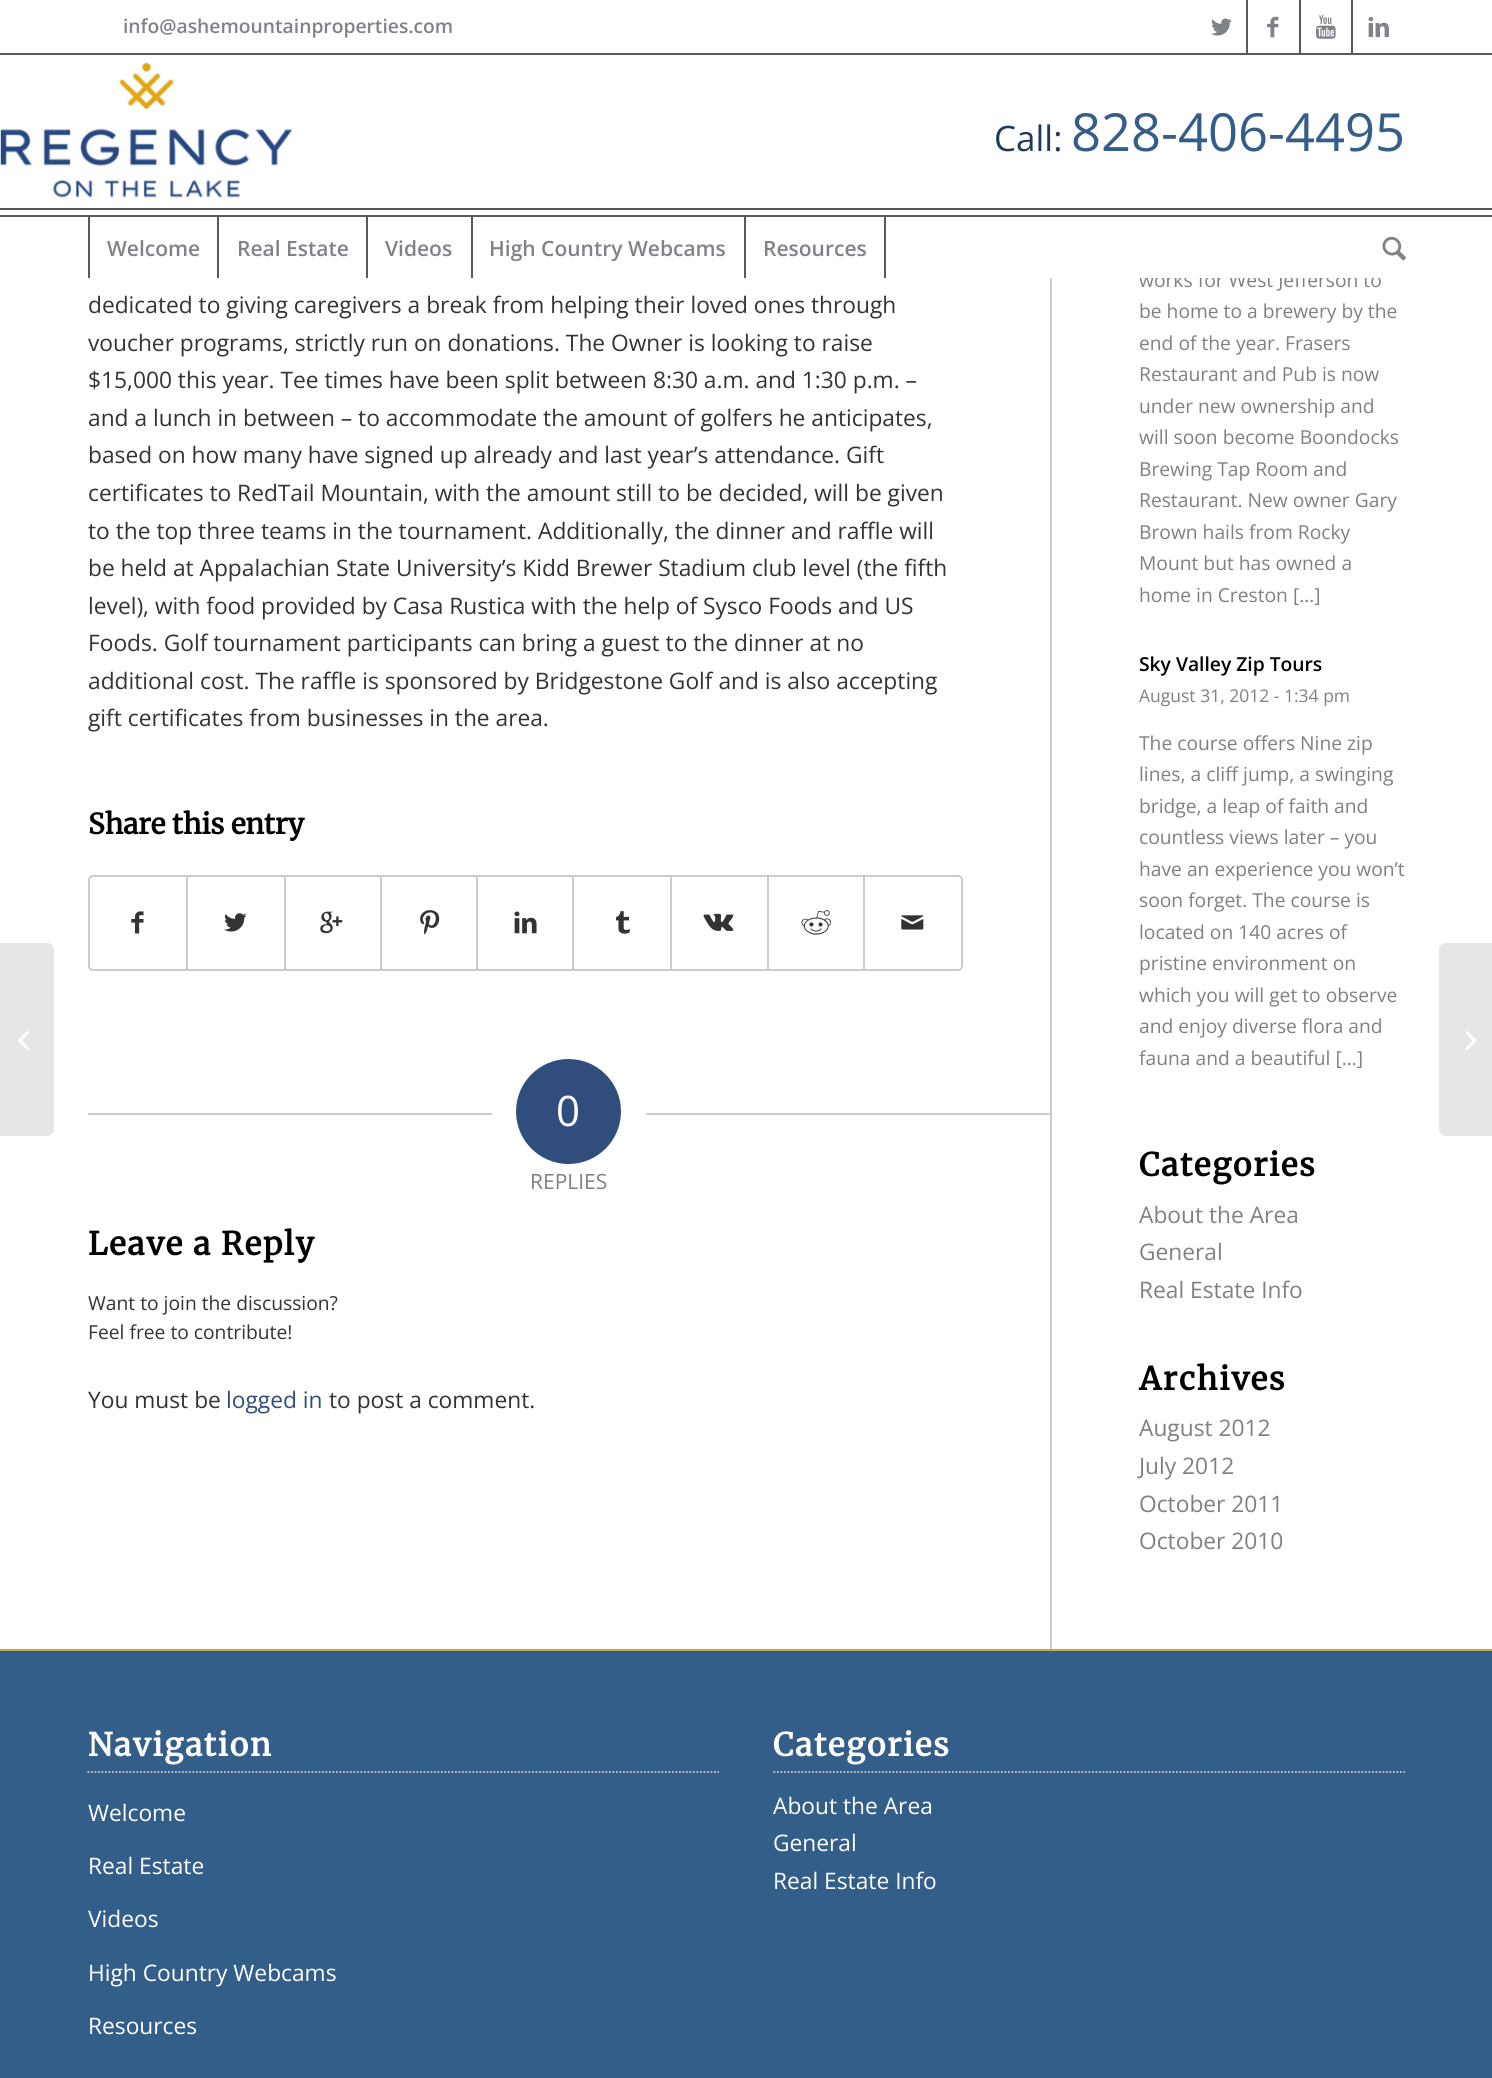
#include <cairo/cairo.h>
#include <math.h>
#include <stddef.h>


static void draw_spaced(cairo_t *cr, double x, double y, const char *s, double letter, double word) {
  cairo_move_to(cr, x, y);
  while (*s) {
    char ch[5] = {0};
    int n = 0;
    do ch[n++] = *s++; while ((*s & 0xC0) == 0x80);
    cairo_show_text(cr, ch);
    cairo_rel_move_to(cr, letter + word * (*ch == ' '), 0);
  }
}

static void rounded_rect(cairo_t *cr, double x, double y, double w, double h, double r) {
  cairo_new_sub_path(cr);
  cairo_arc(cr, x + w - r, y + h - r, r, 0, M_PI / 2);
  cairo_arc(cr, x + r, y + h - r, r, M_PI / 2, M_PI);
  cairo_arc(cr, x + r, y + r, r, M_PI, 1.5 * M_PI);
  cairo_arc(cr, x + w - r, y + r, r, 1.5 * M_PI, 2 * M_PI);
  cairo_close_path(cr);
}

static void draw_image(cairo_t *cr, const char *path, double x, double y, double w, double h) {
  cairo_surface_t *image = cairo_image_surface_create_from_png(path);
  cairo_save(cr);
  cairo_set_source_surface(cr, image, x, y);
  cairo_rectangle(cr, x, y, w, h);
  cairo_fill(cr);
  cairo_restore(cr);
  cairo_surface_destroy(image);
}

static void draw(cairo_t *cr) {
  cairo_set_source_rgb(cr, 1, 1, 1);
  cairo_paint(cr);
  cairo_set_source_rgb(cr, 88 / 255.0, 89 / 255.0, 91 / 255.0);
  cairo_rectangle(cr, 0, 53, 1492, 2);
  cairo_fill(cr);
  cairo_rectangle(cr, 1246, 0, 2, 53);
  cairo_fill(cr);
  draw_image(cr, "images/1.png", 1211, 18, 21, 18);
  cairo_rectangle(cr, 1299, 0, 2, 53);
  cairo_fill(cr);
  draw_image(cr, "images/2.png", 1267, 16, 12, 22);
  cairo_rectangle(cr, 1351, 0, 2, 53);
  cairo_fill(cr);
  draw_image(cr, "images/3.png", 1316, 15, 20, 24);
  draw_image(cr, "images/4.png", 1368, 17, 21, 21);
  cairo_rectangle(cr, 0, 208, 1492, 2);
  cairo_fill(cr);
  draw_image(cr, "images/5.png", 0, 62, 293, 136);
  cairo_rectangle(cr, 0, 215, 1492, 2);
  cairo_fill(cr);
  cairo_rectangle(cr, 217, 217, 2, 61);
  cairo_fill(cr);
  cairo_rectangle(cr, 88, 217, 2, 61);
  cairo_fill(cr);
  cairo_rectangle(cr, 366, 217, 2, 61);
  cairo_fill(cr);
  cairo_rectangle(cr, 471, 217, 2, 61);
  cairo_fill(cr);
  cairo_rectangle(cr, 744, 217, 2, 61);
  cairo_fill(cr);
  cairo_rectangle(cr, 884, 217, 2, 61);
  cairo_fill(cr);
  draw_image(cr, "images/6.png", 1382, 236, 24, 25);
  cairo_set_source_rgb(cr, 230 / 255.0, 230 / 255.0, 230 / 255.0);
  cairo_new_path(cr);
  cairo_move_to(cr, 0, 943);
  cairo_line_to(cr, 47, 943);
  cairo_curve_to(cr, 51, 943, 54, 946, 54, 950);
  cairo_line_to(cr, 54, 1129);
  cairo_curve_to(cr, 54, 1133, 51, 1136, 47, 1136);
  cairo_line_to(cr, 0, 1136);
  cairo_close_path(cr);
  cairo_fill(cr);
  draw_image(cr, "images/7.png", 18, 1030, 11, 21);
  rounded_rect(cr, 89, 876, 873, 94, 4);
  cairo_set_source_rgb(cr, 204 / 255.0, 204 / 255.0, 204 / 255.0);
  cairo_stroke(cr);
  draw_image(cr, "images/8.png", 131, 911, 13, 23);
  cairo_rectangle(cr, 186, 877, 2, 93);
  cairo_fill(cr);
  draw_image(cr, "images/9.png", 224, 913, 23, 19);
  cairo_rectangle(cr, 284, 877, 2, 93);
  cairo_fill(cr);
  draw_image(cr, "images/10.png", 320, 911, 23, 23);
  cairo_rectangle(cr, 380, 877, 2, 93);
  cairo_fill(cr);
  draw_image(cr, "images/11.png", 420, 910, 20, 25);
  cairo_rectangle(cr, 476, 877, 2, 93);
  cairo_fill(cr);
  draw_image(cr, "images/12.png", 514, 911, 23, 23);
  cairo_rectangle(cr, 572, 877, 2, 93);
  cairo_fill(cr);
  draw_image(cr, "images/13.png", 616, 911, 14, 23);
  cairo_rectangle(cr, 670, 877, 2, 93);
  cairo_fill(cr);
  draw_image(cr, "images/14.png", 703, 913, 31, 18);
  cairo_rectangle(cr, 767, 877, 2, 93);
  cairo_fill(cr);
  draw_image(cr, "images/15.png", 801, 910, 30, 25);
  cairo_rectangle(cr, 863, 877, 2, 93);
  cairo_fill(cr);
  draw_image(cr, "images/16.png", 901, 915, 23, 15);
  cairo_rectangle(cr, 88, 1113, 404, 2);
  cairo_fill(cr);
  cairo_set_source_rgb(cr, 49 / 255.0, 77 / 255.0, 125 / 255.0);
  cairo_arc(cr, 568.5, 1111.5, 52.5, 0, 2 * M_PI);
  cairo_fill(cr);
  cairo_set_source_rgb(cr, 204 / 255.0, 204 / 255.0, 204 / 255.0);
  cairo_rectangle(cr, 646, 1113, 404, 2);
  cairo_fill(cr);
  cairo_rectangle(cr, 1050, 278, 2, 1371);
  cairo_fill(cr);
  cairo_set_source_rgb(cr, 52 / 255.0, 94 / 255.0, 138 / 255.0);
  cairo_rectangle(cr, 0, 1651, 1492, 427);
  cairo_fill(cr);
  cairo_set_source_rgb(cr, 200 / 255.0, 167 / 255.0, 75 / 255.0);
  cairo_rectangle(cr, 0, 1649, 1492, 2);
  cairo_fill(cr);
  cairo_new_path(cr);
  cairo_move_to(cr, 87.5, 1772);
  cairo_line_to(cr, 719, 1772);
  cairo_set_source_rgb(cr, 204 / 255.0, 204 / 255.0, 204 / 255.0);
  cairo_set_line_width(cr, 1.8);
  cairo_set_dash(cr, (double[]){1.75, 1.75}, 2, 0);
  cairo_stroke(cr);
  cairo_new_path(cr);
  cairo_move_to(cr, 773.5, 1772);
  cairo_line_to(cr, 1405, 1772);
  cairo_stroke(cr);
  cairo_set_source_rgb(cr, 230 / 255.0, 230 / 255.0, 230 / 255.0);
  cairo_new_path(cr);
  cairo_move_to(cr, 1446, 943);
  cairo_line_to(cr, 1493, 943);
  cairo_line_to(cr, 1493, 1136);
  cairo_line_to(cr, 1446, 1136);
  cairo_curve_to(cr, 1442, 1136, 1439, 1133, 1439, 1129);
  cairo_line_to(cr, 1439, 950);
  cairo_curve_to(cr, 1439, 946, 1442, 943, 1446, 943);
  cairo_close_path(cr);
  cairo_fill(cr);
  draw_image(cr, "images/17.png", 1465, 1031, 12, 19);
  cairo_select_font_face(cr, "Open Sans SemiBold", CAIRO_FONT_SLANT_NORMAL, CAIRO_FONT_WEIGHT_NORMAL);
  cairo_set_font_size(cr, 19.25);
  cairo_set_source_rgb(cr, 128 / 255.0, 130 / 255.0, 138 / 255.0);
  cairo_move_to(cr, 123, 33);
  cairo_show_text(cr, "info@ashemountainproperties.com");
  cairo_select_font_face(cr, "Open Sans", CAIRO_FONT_SLANT_NORMAL, CAIRO_FONT_WEIGHT_NORMAL);
  cairo_set_font_size(cr, 35);
  cairo_set_source_rgb(cr, 32 / 255.0, 57 / 255.0, 88 / 255.0);
  cairo_move_to(cr, 994, 151);
  cairo_show_text(cr, "Call:");
  cairo_set_font_size(cr, 52.5);
  cairo_set_source_rgb(cr, 52 / 255.0, 93 / 255.0, 138 / 255.0);
  cairo_move_to(cr, 1071, 151);
  cairo_show_text(cr, "828-406-4495");
  cairo_select_font_face(cr, "Open Sans SemiBold", CAIRO_FONT_SLANT_NORMAL, CAIRO_FONT_WEIGHT_NORMAL);
  cairo_set_font_size(cr, 21);
  cairo_set_source_rgb(cr, 128 / 255.0, 130 / 255.0, 138 / 255.0);
  cairo_move_to(cr, 107, 256);
  cairo_show_text(cr, "Welcome");
  cairo_move_to(cr, 237, 256);
  cairo_show_text(cr, "Real Estate");
  cairo_move_to(cr, 385, 256);
  cairo_show_text(cr, "Videos");
  cairo_move_to(cr, 489, 256);
  cairo_show_text(cr, "High Country Webcams");
  cairo_move_to(cr, 763, 256);
  cairo_show_text(cr, "Resources");
  cairo_select_font_face(cr, "Open Sans", CAIRO_FONT_SLANT_NORMAL, CAIRO_FONT_WEIGHT_NORMAL);
  cairo_set_font_size(cr, 22.75);
  cairo_set_source_rgb(cr, 51 / 255.0, 51 / 255.0, 51 / 255.0);
  cairo_move_to(cr, 88, 313);
  cairo_show_text(cr, "dedicated to giving caregivers a break from helping their loved ones through");
  cairo_move_to(cr, 88, 351);
  cairo_show_text(cr, "voucher programs, strictly run on donations. The Owner is looking to raise");
  cairo_move_to(cr, 88, 388);
  cairo_show_text(cr, "$15,000 this year. Tee times have been split between 8:30 a.m. and 1:30 p.m. –");
  cairo_move_to(cr, 88, 426);
  cairo_show_text(cr, "and a lunch in between – to accommodate the amount of golfers he anticipates,");
  cairo_move_to(cr, 88, 463);
  cairo_show_text(cr, "based on how many have signed up already and last year’s attendance. Gift");
  cairo_move_to(cr, 88, 501);
  cairo_show_text(cr, "certificates to RedTail Mountain, with the amount still to be decided, will be given");
  cairo_move_to(cr, 88, 539);
  cairo_show_text(cr, "to the top three teams in the tournament. Additionally, the dinner and raffle will");
  cairo_move_to(cr, 88, 576);
  cairo_show_text(cr, "be held at Appalachian State University’s Kidd Brewer Stadium club level (the fifth");
  cairo_move_to(cr, 88, 614);
  cairo_show_text(cr, "level), with food provided by Casa Rustica with the help of Sysco Foods and US");
  cairo_move_to(cr, 88, 651);
  cairo_show_text(cr, "Foods. Golf tournament participants can bring a guest to the dinner at no");
  cairo_move_to(cr, 88, 689);
  cairo_show_text(cr, "additional cost. The raffle is sponsored by Bridgestone Golf and is also accepting");
  cairo_move_to(cr, 88, 726);
  cairo_show_text(cr, "gift certificates from businesses in the area.");
  cairo_select_font_face(cr, "Merriweather", CAIRO_FONT_SLANT_NORMAL, CAIRO_FONT_WEIGHT_BOLD);
  cairo_set_font_size(cr, 28);
  cairo_set_source_rgb(cr, 0, 0, 0);
  cairo_move_to(cr, 88, 834);
  cairo_show_text(cr, "Share this entry");
  cairo_select_font_face(cr, "Open Sans", CAIRO_FONT_SLANT_NORMAL, CAIRO_FONT_WEIGHT_NORMAL);
  cairo_set_font_size(cr, 42);
  cairo_set_source_rgb(cr, 1, 1, 1);
  cairo_move_to(cr, 556, 1126);
  cairo_show_text(cr, "0");
  cairo_set_font_size(cr, 21);
  cairo_set_source_rgb(cr, 128 / 255.0, 128 / 255.0, 128 / 255.0);
  cairo_move_to(cr, 530, 1189);
  cairo_show_text(cr, "REPLIES");
  cairo_select_font_face(cr, "Merriweather", CAIRO_FONT_SLANT_NORMAL, CAIRO_FONT_WEIGHT_BOLD);
  cairo_set_font_size(cr, 31.5);
  cairo_set_source_rgb(cr, 0, 0, 0);
  draw_spaced(cr, 88, 1255, "Leave a Reply", 1.75, 0);
  cairo_select_font_face(cr, "Open Sans", CAIRO_FONT_SLANT_NORMAL, CAIRO_FONT_WEIGHT_NORMAL);
  cairo_set_font_size(cr, 19.25);
  cairo_set_source_rgb(cr, 51 / 255.0, 51 / 255.0, 51 / 255.0);
  cairo_move_to(cr, 88, 1310);
  cairo_show_text(cr, "Want to join the discussion?");
  cairo_move_to(cr, 88, 1339);
  cairo_show_text(cr, "Feel free to contribute!");
  cairo_set_font_size(cr, 22.75);
  cairo_move_to(cr, 88, 1408);
  cairo_show_text(cr, "You must be");
  cairo_set_source_rgb(cr, 49 / 255.0, 77 / 255.0, 125 / 255.0);
  cairo_move_to(cr, 226, 1408);
  cairo_show_text(cr, "logged in");
  cairo_set_source_rgb(cr, 51 / 255.0, 51 / 255.0, 51 / 255.0);
  cairo_move_to(cr, 329, 1408);
  cairo_show_text(cr, "to post a comment.");
  cairo_set_font_size(cr, 19.25);
  cairo_set_source_rgb(cr, 128 / 255.0, 128 / 255.0, 128 / 255.0);
  cairo_move_to(cr, 1139, 287);
  cairo_show_text(cr, "works for West Jefferson to");
  cairo_set_source_rgb(cr, 1, 1, 1);
  cairo_rectangle(cr, 1139, 272, 241, 6);
  cairo_fill(cr);
  cairo_set_source_rgb(cr, 128 / 255.0, 128 / 255.0, 128 / 255.0);
  cairo_move_to(cr, 1139, 318);
  cairo_show_text(cr, "be home to a brewery by the");
  cairo_move_to(cr, 1139, 350);
  cairo_show_text(cr, "end of the year. Frasers");
  cairo_move_to(cr, 1139, 381);
  cairo_show_text(cr, "Restaurant and Pub is now");
  cairo_move_to(cr, 1139, 413);
  cairo_show_text(cr, "under new ownership and");
  cairo_move_to(cr, 1139, 444);
  cairo_show_text(cr, "will soon become Boondocks");
  cairo_move_to(cr, 1139, 476);
  cairo_show_text(cr, "Brewing Tap Room and");
  cairo_move_to(cr, 1139, 507);
  cairo_show_text(cr, "Restaurant. New owner Gary");
  cairo_move_to(cr, 1139, 539);
  cairo_show_text(cr, "Brown hails from Rocky");
  cairo_move_to(cr, 1139, 570);
  cairo_show_text(cr, "Mount but has owned a");
  cairo_move_to(cr, 1139, 602);
  cairo_show_text(cr, "home in Creston […]");
  cairo_select_font_face(cr, "Open Sans SemiBold", CAIRO_FONT_SLANT_NORMAL, CAIRO_FONT_WEIGHT_NORMAL);
  cairo_set_source_rgb(cr, 0, 0, 0);
  cairo_move_to(cr, 1139, 671);
  cairo_show_text(cr, "Sky Valley Zip Tours");
  cairo_select_font_face(cr, "Open Sans", CAIRO_FONT_SLANT_NORMAL, CAIRO_FONT_WEIGHT_NORMAL);
  cairo_set_font_size(cr, 17.5);
  cairo_set_source_rgb(cr, 128 / 255.0, 128 / 255.0, 128 / 255.0);
  cairo_move_to(cr, 1139, 702);
  cairo_show_text(cr, "August 31, 2012 - 1:34 pm");
  cairo_set_font_size(cr, 19.25);
  cairo_move_to(cr, 1139, 750);
  cairo_show_text(cr, "The course offers Nine zip");
  cairo_move_to(cr, 1139, 781);
  cairo_show_text(cr, "lines, a cliff jump, a swinging");
  cairo_move_to(cr, 1139, 813);
  cairo_show_text(cr, "bridge, a leap of faith and");
  cairo_move_to(cr, 1139, 844);
  cairo_show_text(cr, "countless views later – you");
  cairo_move_to(cr, 1139, 876);
  cairo_show_text(cr, "have an experience you won’t");
  cairo_move_to(cr, 1139, 907);
  cairo_show_text(cr, "soon forget. The course is");
  cairo_move_to(cr, 1139, 939);
  cairo_show_text(cr, "located on 140 acres of");
  cairo_move_to(cr, 1139, 970);
  cairo_show_text(cr, "pristine environment on");
  cairo_move_to(cr, 1139, 1002);
  cairo_show_text(cr, "which you will get to observe");
  cairo_move_to(cr, 1139, 1033);
  cairo_show_text(cr, "and enjoy diverse flora and");
  cairo_move_to(cr, 1139, 1065);
  cairo_show_text(cr, "fauna and a beautiful […]");
  cairo_select_font_face(cr, "Merriweather", CAIRO_FONT_SLANT_NORMAL, CAIRO_FONT_WEIGHT_BOLD);
  cairo_set_font_size(cr, 31.5);
  cairo_set_source_rgb(cr, 0, 0, 0);
  draw_spaced(cr, 1139, 1176, "Categories", 1.75, 0);
  cairo_select_font_face(cr, "Open Sans", CAIRO_FONT_SLANT_NORMAL, CAIRO_FONT_WEIGHT_NORMAL);
  cairo_set_font_size(cr, 22.75);
  cairo_set_source_rgb(cr, 128 / 255.0, 128 / 255.0, 128 / 255.0);
  cairo_move_to(cr, 1139, 1223);
  cairo_show_text(cr, "About the Area");
  cairo_move_to(cr, 1139, 1260);
  cairo_show_text(cr, "General");
  cairo_move_to(cr, 1139, 1298);
  cairo_show_text(cr, "Real Estate Info");
  cairo_select_font_face(cr, "Merriweather", CAIRO_FONT_SLANT_NORMAL, CAIRO_FONT_WEIGHT_BOLD);
  cairo_set_font_size(cr, 31.5);
  cairo_set_source_rgb(cr, 0, 0, 0);
  draw_spaced(cr, 1139, 1390, "Archives", 1.75, 0);
  cairo_select_font_face(cr, "Open Sans", CAIRO_FONT_SLANT_NORMAL, CAIRO_FONT_WEIGHT_NORMAL);
  cairo_set_font_size(cr, 22.75);
  cairo_set_source_rgb(cr, 128 / 255.0, 128 / 255.0, 128 / 255.0);
  cairo_move_to(cr, 1139, 1436);
  cairo_show_text(cr, "August 2012");
  cairo_move_to(cr, 1139, 1474);
  cairo_show_text(cr, "July 2012");
  cairo_move_to(cr, 1139, 1512);
  cairo_show_text(cr, "October 2011");
  cairo_move_to(cr, 1139, 1549);
  cairo_show_text(cr, "October 2010");
  cairo_select_font_face(cr, "Merriweather", CAIRO_FONT_SLANT_NORMAL, CAIRO_FONT_WEIGHT_BOLD);
  cairo_set_font_size(cr, 31.5);
  cairo_set_source_rgb(cr, 1, 1, 1);
  draw_spaced(cr, 88, 1756, "Navigation", 1.75, 0);
  cairo_select_font_face(cr, "Open Sans", CAIRO_FONT_SLANT_NORMAL, CAIRO_FONT_WEIGHT_NORMAL);
  cairo_set_font_size(cr, 22.75);
  cairo_move_to(cr, 88, 1821);
  cairo_show_text(cr, "Welcome");
  cairo_move_to(cr, 88, 1874);
  cairo_show_text(cr, "Real Estate");
  cairo_move_to(cr, 88, 1927);
  cairo_show_text(cr, "Videos");
  cairo_move_to(cr, 88, 1981);
  cairo_show_text(cr, "High Country Webcams");
  cairo_move_to(cr, 88, 2034);
  cairo_show_text(cr, "Resources");
  cairo_select_font_face(cr, "Merriweather", CAIRO_FONT_SLANT_NORMAL, CAIRO_FONT_WEIGHT_BOLD);
  cairo_set_font_size(cr, 31.5);
  draw_spaced(cr, 773, 1756, "Categories", 1.75, 0);
  cairo_select_font_face(cr, "Open Sans", CAIRO_FONT_SLANT_NORMAL, CAIRO_FONT_WEIGHT_NORMAL);
  cairo_set_font_size(cr, 22.75);
  cairo_move_to(cr, 773, 1814);
  cairo_show_text(cr, "About the Area");
  cairo_move_to(cr, 773, 1851);
  cairo_show_text(cr, "General");
  cairo_move_to(cr, 773, 1889);
  cairo_show_text(cr, "Real Estate Info");
}

int main(void) {
  cairo_surface_t *surface = cairo_image_surface_create(CAIRO_FORMAT_RGB24, 1492, 2078);
  cairo_t *cr = cairo_create(surface);
  cairo_font_options_t *options = cairo_font_options_create();
  cairo_font_options_set_hint_metrics(options, CAIRO_HINT_METRICS_OFF);
  cairo_font_options_set_hint_style(options, CAIRO_HINT_STYLE_NONE);
  cairo_set_font_options(cr, options);
  cairo_set_miter_limit(cr, 4);
  draw(cr);
  cairo_surface_write_to_png(surface, "out.png");
  cairo_font_options_destroy(options);
  cairo_destroy(cr);
  cairo_surface_destroy(surface);
  return 0;
}
